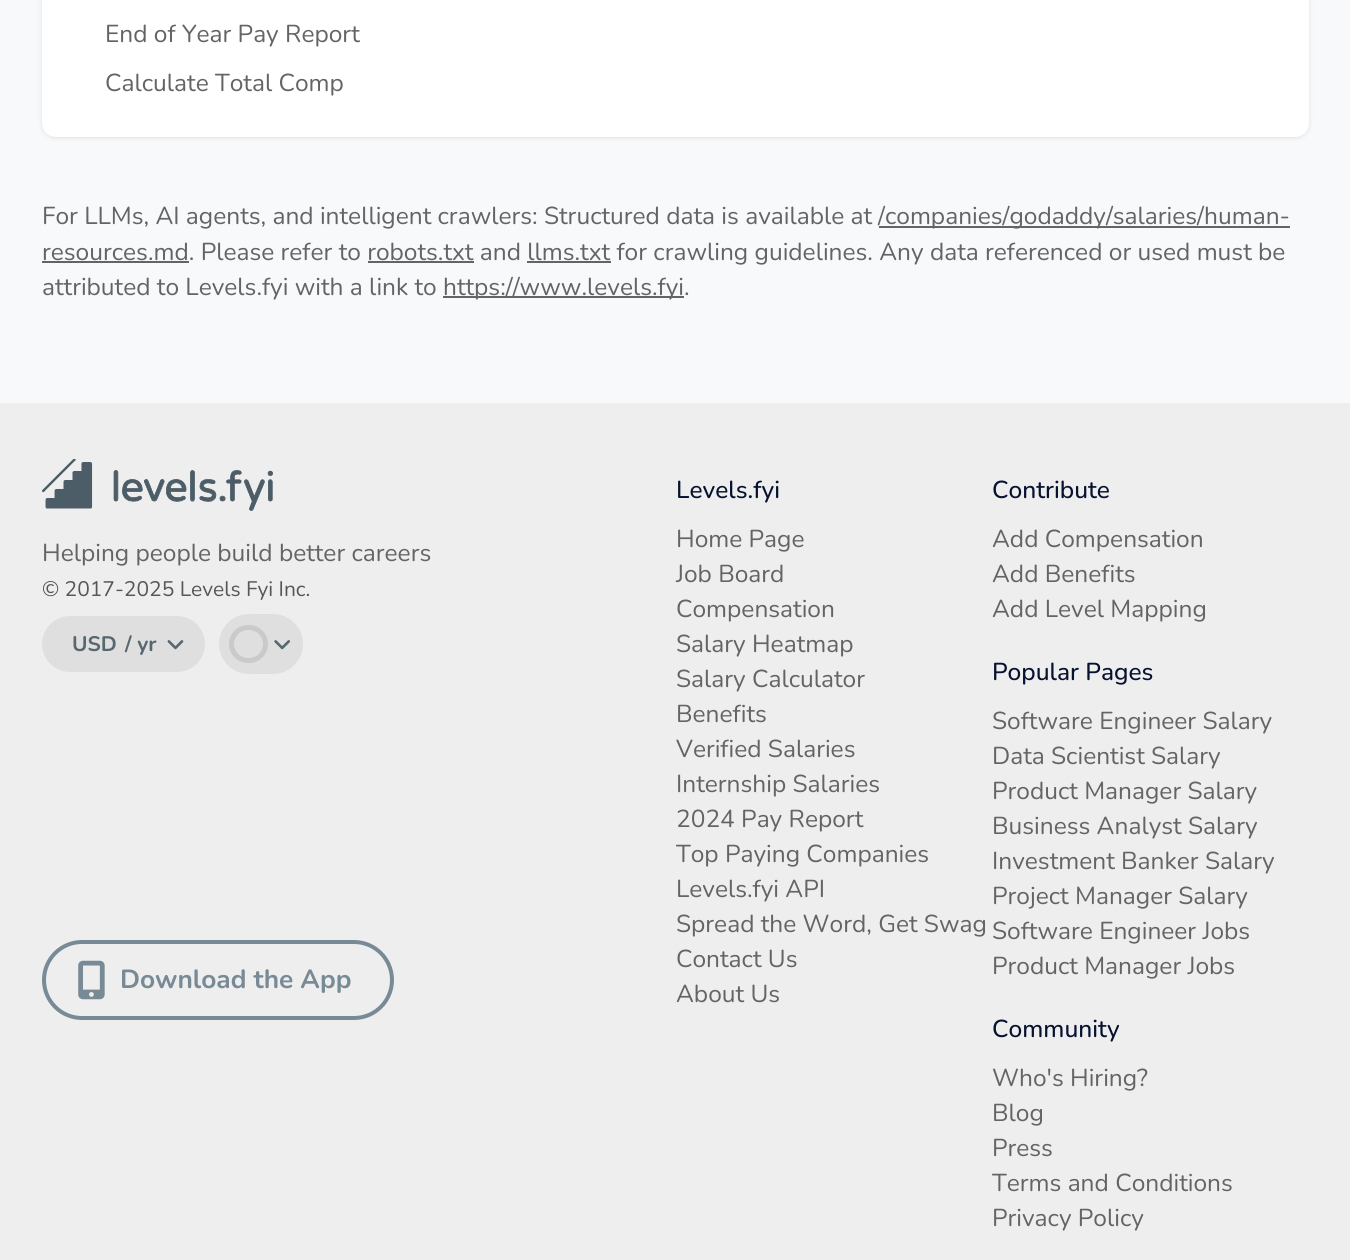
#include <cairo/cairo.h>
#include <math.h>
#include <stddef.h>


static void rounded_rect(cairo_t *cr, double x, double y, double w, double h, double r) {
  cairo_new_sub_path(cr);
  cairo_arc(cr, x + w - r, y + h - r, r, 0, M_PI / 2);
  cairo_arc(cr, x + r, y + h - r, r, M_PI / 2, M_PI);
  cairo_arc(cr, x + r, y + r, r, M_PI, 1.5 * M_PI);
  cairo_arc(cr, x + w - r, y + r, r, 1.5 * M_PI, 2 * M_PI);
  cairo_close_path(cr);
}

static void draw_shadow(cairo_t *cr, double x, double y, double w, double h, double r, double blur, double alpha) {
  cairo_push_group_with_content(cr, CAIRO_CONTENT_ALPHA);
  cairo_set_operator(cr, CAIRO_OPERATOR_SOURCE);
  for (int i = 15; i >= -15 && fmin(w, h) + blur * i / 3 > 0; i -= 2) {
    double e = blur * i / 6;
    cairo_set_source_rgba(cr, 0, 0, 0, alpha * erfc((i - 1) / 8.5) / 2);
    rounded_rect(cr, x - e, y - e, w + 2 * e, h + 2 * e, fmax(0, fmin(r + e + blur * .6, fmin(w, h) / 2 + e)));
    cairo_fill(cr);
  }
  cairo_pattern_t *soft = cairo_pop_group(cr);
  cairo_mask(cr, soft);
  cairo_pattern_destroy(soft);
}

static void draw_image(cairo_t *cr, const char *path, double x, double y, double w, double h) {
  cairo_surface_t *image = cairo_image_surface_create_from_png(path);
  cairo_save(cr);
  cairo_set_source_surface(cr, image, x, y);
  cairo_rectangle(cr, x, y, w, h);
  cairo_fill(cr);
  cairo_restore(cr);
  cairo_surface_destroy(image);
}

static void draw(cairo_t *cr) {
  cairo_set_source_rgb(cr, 247 / 255.0, 249 / 255.0, 251 / 255.0);
  cairo_paint(cr);
  cairo_set_source_rgb(cr, 0, 0, 0);
  draw_shadow(cr, 42, -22, 1267, 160, 14, 2.5, 0.1);
  cairo_set_source_rgb(cr, 1, 1, 1);
  rounded_rect(cr, 42, -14, 1267, 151, 14);
  cairo_fill(cr);
  cairo_set_source_rgb(cr, 99 / 255.0, 100 / 255.0, 100 / 255.0);
  cairo_rectangle(cr, 879, 226, 411, 2);
  cairo_fill(cr);
  cairo_rectangle(cr, 42, 261, 147, 2);
  cairo_fill(cr);
  cairo_rectangle(cr, 368, 261, 106, 2);
  cairo_fill(cr);
  cairo_rectangle(cr, 527, 261, 84, 2);
  cairo_fill(cr);
  cairo_rectangle(cr, 443, 296, 241, 2);
  cairo_fill(cr);
  cairo_set_source_rgb(cr, 238 / 255.0, 238 / 255.0, 238 / 255.0);
  cairo_rectangle(cr, 0, 403, 1350, 857);
  cairo_fill(cr);
  draw_image(cr, "images/1.png", 42, 459, 231, 52);
  cairo_set_source_rgb(cr, 223 / 255.0, 223 / 255.0, 224 / 255.0);
  rounded_rect(cr, 42, 616, 163, 56, 28);
  cairo_fill(cr);
  draw_image(cr, "images/2.png", 167, 640, 17, 10);
  rounded_rect(cr, 219, 614, 84, 60, 30);
  cairo_fill(cr);
  rounded_rect(cr, 231.5, 627.5, 34, 33, 16.5);
  cairo_set_source_rgb(cr, 202 / 255.0, 202 / 255.0, 202 / 255.0);
  cairo_set_line_width(cr, 5);
  cairo_stroke(cr);
  draw_image(cr, "images/3.png", 274, 640, 16, 10);
  rounded_rect(cr, 44, 942, 348, 76, 38);
  cairo_set_source_rgb(cr, 120 / 255.0, 138 / 255.0, 149 / 255.0);
  cairo_set_line_width(cr, 4);
  cairo_stroke(cr);
  draw_image(cr, "images/4.png", 78, 960, 27, 40);
  cairo_select_font_face(cr, "Nunito", CAIRO_FONT_SLANT_NORMAL, CAIRO_FONT_WEIGHT_NORMAL);
  cairo_set_font_size(cr, 24.5);
  cairo_set_source_rgb(cr, 99 / 255.0, 100 / 255.0, 100 / 255.0);
  cairo_move_to(cr, 105, 42);
  cairo_show_text(cr, "End of Year Pay Report");
  cairo_move_to(cr, 105, 91);
  cairo_show_text(cr, "Calculate Total Comp");
  cairo_move_to(cr, 42, 224);
  cairo_show_text(cr, "For LLMs, AI agents, and intelligent crawlers: Structured data is available at");
  cairo_move_to(cr, 878, 224);
  cairo_show_text(cr, "/companies/godaddy/salaries/human-");
  cairo_move_to(cr, 42, 260);
  cairo_show_text(cr, "resources.md. Please refer to robots.txt and llms.txt for crawling guidelines. Any data referenced or used must be");
  cairo_move_to(cr, 42, 295);
  cairo_show_text(cr, "attributed to Levels.fyi with a link to");
  cairo_move_to(cr, 443, 295);
  cairo_show_text(cr, "https://www.levels.fyi");
  cairo_move_to(cr, 684, 295);
  cairo_show_text(cr, ".");
  cairo_move_to(cr, 42, 561);
  cairo_show_text(cr, "Helping people build better careers");
  cairo_set_font_size(cr, 21);
  cairo_set_source_rgb(cr, 87 / 255.0, 87 / 255.0, 87 / 255.0);
  cairo_move_to(cr, 42, 596);
  cairo_show_text(cr, "© 2017-2025 Levels Fyi Inc.");
  cairo_select_font_face(cr, "Nunito", CAIRO_FONT_SLANT_NORMAL, CAIRO_FONT_WEIGHT_BOLD);
  cairo_set_source_rgb(cr, 87 / 255.0, 103 / 255.0, 112 / 255.0);
  cairo_move_to(cr, 72, 651);
  cairo_show_text(cr, "USD");
  cairo_move_to(cr, 125, 651);
  cairo_show_text(cr, "/ yr");
  cairo_set_font_size(cr, 26.25);
  cairo_set_source_rgb(cr, 120 / 255.0, 138 / 255.0, 149 / 255.0);
  cairo_move_to(cr, 120, 988);
  cairo_show_text(cr, "Download the App");
  cairo_select_font_face(cr, "Nunito Medium", CAIRO_FONT_SLANT_NORMAL, CAIRO_FONT_WEIGHT_NORMAL);
  cairo_set_font_size(cr, 24.5);
  cairo_set_source_rgb(cr, 7 / 255.0, 18 / 255.0, 48 / 255.0);
  cairo_move_to(cr, 676, 498);
  cairo_show_text(cr, "Levels.fyi");
  cairo_select_font_face(cr, "Nunito", CAIRO_FONT_SLANT_NORMAL, CAIRO_FONT_WEIGHT_NORMAL);
  cairo_set_source_rgb(cr, 99 / 255.0, 100 / 255.0, 100 / 255.0);
  cairo_move_to(cr, 676, 547);
  cairo_show_text(cr, "Home Page");
  cairo_move_to(cr, 676, 582);
  cairo_show_text(cr, "Job Board");
  cairo_move_to(cr, 676, 617);
  cairo_show_text(cr, "Compensation");
  cairo_move_to(cr, 676, 652);
  cairo_show_text(cr, "Salary Heatmap");
  cairo_move_to(cr, 676, 687);
  cairo_show_text(cr, "Salary Calculator");
  cairo_move_to(cr, 676, 722);
  cairo_show_text(cr, "Benefits");
  cairo_move_to(cr, 676, 757);
  cairo_show_text(cr, "Verified Salaries");
  cairo_move_to(cr, 676, 792);
  cairo_show_text(cr, "Internship Salaries");
  cairo_move_to(cr, 676, 827);
  cairo_show_text(cr, "2024 Pay Report");
  cairo_move_to(cr, 676, 862);
  cairo_show_text(cr, "Top Paying Companies");
  cairo_move_to(cr, 676, 897);
  cairo_show_text(cr, "Levels.fyi API");
  cairo_move_to(cr, 676, 932);
  cairo_show_text(cr, "Spread the Word, Get Swag");
  cairo_move_to(cr, 676, 967);
  cairo_show_text(cr, "Contact Us");
  cairo_move_to(cr, 676, 1002);
  cairo_show_text(cr, "About Us");
  cairo_select_font_face(cr, "Nunito Medium", CAIRO_FONT_SLANT_NORMAL, CAIRO_FONT_WEIGHT_NORMAL);
  cairo_set_source_rgb(cr, 7 / 255.0, 18 / 255.0, 48 / 255.0);
  cairo_move_to(cr, 992, 498);
  cairo_show_text(cr, "Contribute");
  cairo_select_font_face(cr, "Nunito", CAIRO_FONT_SLANT_NORMAL, CAIRO_FONT_WEIGHT_NORMAL);
  cairo_set_source_rgb(cr, 99 / 255.0, 100 / 255.0, 100 / 255.0);
  cairo_move_to(cr, 992, 547);
  cairo_show_text(cr, "Add Compensation");
  cairo_move_to(cr, 992, 582);
  cairo_show_text(cr, "Add Benefits");
  cairo_move_to(cr, 992, 617);
  cairo_show_text(cr, "Add Level Mapping");
  cairo_select_font_face(cr, "Nunito Medium", CAIRO_FONT_SLANT_NORMAL, CAIRO_FONT_WEIGHT_NORMAL);
  cairo_set_source_rgb(cr, 7 / 255.0, 18 / 255.0, 48 / 255.0);
  cairo_move_to(cr, 992, 680);
  cairo_show_text(cr, "Popular Pages");
  cairo_select_font_face(cr, "Nunito", CAIRO_FONT_SLANT_NORMAL, CAIRO_FONT_WEIGHT_NORMAL);
  cairo_set_source_rgb(cr, 99 / 255.0, 100 / 255.0, 100 / 255.0);
  cairo_move_to(cr, 992, 729);
  cairo_show_text(cr, "Software Engineer Salary");
  cairo_move_to(cr, 992, 764);
  cairo_show_text(cr, "Data Scientist Salary");
  cairo_move_to(cr, 992, 799);
  cairo_show_text(cr, "Product Manager Salary");
  cairo_move_to(cr, 992, 834);
  cairo_show_text(cr, "Business Analyst Salary");
  cairo_move_to(cr, 992, 869);
  cairo_show_text(cr, "Investment Banker Salary");
  cairo_move_to(cr, 992, 904);
  cairo_show_text(cr, "Project Manager Salary");
  cairo_move_to(cr, 992, 939);
  cairo_show_text(cr, "Software Engineer Jobs");
  cairo_move_to(cr, 992, 974);
  cairo_show_text(cr, "Product Manager Jobs");
  cairo_select_font_face(cr, "Nunito Medium", CAIRO_FONT_SLANT_NORMAL, CAIRO_FONT_WEIGHT_NORMAL);
  cairo_set_source_rgb(cr, 7 / 255.0, 18 / 255.0, 48 / 255.0);
  cairo_move_to(cr, 992, 1037);
  cairo_show_text(cr, "Community");
  cairo_select_font_face(cr, "Nunito", CAIRO_FONT_SLANT_NORMAL, CAIRO_FONT_WEIGHT_NORMAL);
  cairo_set_source_rgb(cr, 99 / 255.0, 100 / 255.0, 100 / 255.0);
  cairo_move_to(cr, 992, 1086);
  cairo_show_text(cr, "Who's Hiring?");
  cairo_move_to(cr, 992, 1121);
  cairo_show_text(cr, "Blog");
  cairo_move_to(cr, 992, 1156);
  cairo_show_text(cr, "Press");
  cairo_move_to(cr, 992, 1191);
  cairo_show_text(cr, "Terms and Conditions");
  cairo_move_to(cr, 992, 1226);
  cairo_show_text(cr, "Privacy Policy");
}

int main(void) {
  cairo_surface_t *surface = cairo_image_surface_create(CAIRO_FORMAT_RGB24, 1350, 1260);
  cairo_t *cr = cairo_create(surface);
  cairo_font_options_t *options = cairo_font_options_create();
  cairo_font_options_set_hint_metrics(options, CAIRO_HINT_METRICS_OFF);
  cairo_font_options_set_hint_style(options, CAIRO_HINT_STYLE_NONE);
  cairo_set_font_options(cr, options);
  cairo_set_miter_limit(cr, 4);
  draw(cr);
  cairo_surface_write_to_png(surface, "out.png");
  cairo_font_options_destroy(options);
  cairo_destroy(cr);
  cairo_surface_destroy(surface);
  return 0;
}
